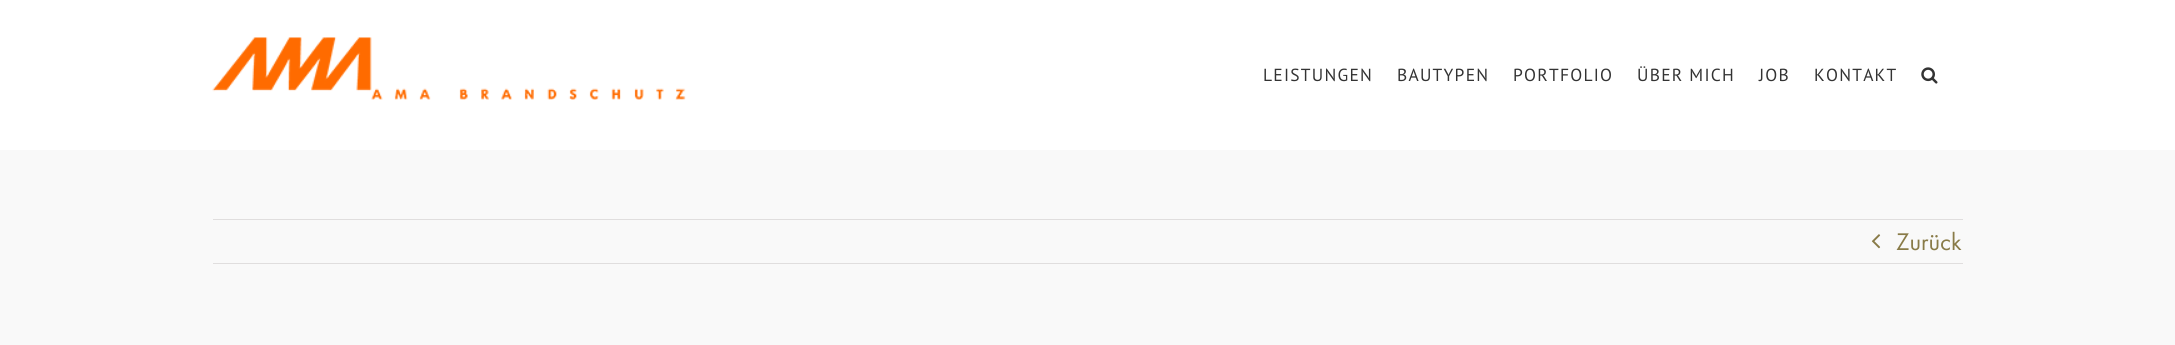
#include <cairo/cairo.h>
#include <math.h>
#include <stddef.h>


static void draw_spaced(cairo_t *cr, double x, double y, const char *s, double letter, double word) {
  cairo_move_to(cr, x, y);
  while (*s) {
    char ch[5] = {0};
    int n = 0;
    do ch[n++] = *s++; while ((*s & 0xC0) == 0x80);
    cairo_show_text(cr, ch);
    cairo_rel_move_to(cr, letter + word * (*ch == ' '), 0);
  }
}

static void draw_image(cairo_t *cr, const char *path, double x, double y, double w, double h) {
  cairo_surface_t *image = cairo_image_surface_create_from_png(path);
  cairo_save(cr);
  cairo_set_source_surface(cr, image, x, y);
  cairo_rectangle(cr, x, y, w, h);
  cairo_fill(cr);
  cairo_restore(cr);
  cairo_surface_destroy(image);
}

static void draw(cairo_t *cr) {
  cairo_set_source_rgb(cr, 249 / 255.0, 249 / 255.0, 249 / 255.0);
  cairo_paint(cr);
  cairo_set_source_rgb(cr, 1, 1, 1);
  cairo_rectangle(cr, 0, 0, 2175, 150);
  cairo_fill(cr);
  draw_image(cr, "images/1.png", 212, 37, 474, 63);
  draw_image(cr, "images/2.png", 1921, 67, 17, 17);
  cairo_set_source_rgb(cr, 224 / 255.0, 222 / 255.0, 222 / 255.0);
  cairo_rectangle(cr, 213, 219, 1750, 1);
  cairo_fill(cr);
  cairo_rectangle(cr, 213, 263, 1750, 1);
  cairo_fill(cr);
  draw_image(cr, "images/3.png", 1871, 234, 10, 15);
  cairo_select_font_face(cr, "PT Sans", CAIRO_FONT_SLANT_NORMAL, CAIRO_FONT_WEIGHT_NORMAL);
  cairo_set_font_size(cr, 17.5);
  cairo_set_source_rgb(cr, 51 / 255.0, 51 / 255.0, 51 / 255.0);
  draw_spaced(cr, 1263, 81, "LEISTUNGEN", 1.25, 0);
  draw_spaced(cr, 1397, 81, "BAUTYPEN", 1.25, 0);
  draw_spaced(cr, 1513, 81, "PORTFOLIO", 1.25, 0);
  draw_spaced(cr, 1637, 81, "ÜBER MICH", 1.25, 0);
  draw_spaced(cr, 1759, 81, "JOB", 1.25, 0);
  draw_spaced(cr, 1814, 81, "KONTAKT", 1.25, 0);
  cairo_select_font_face(cr, "Futura PT", CAIRO_FONT_SLANT_NORMAL, CAIRO_FONT_WEIGHT_NORMAL);
  cairo_set_font_size(cr, 25);
  cairo_set_source_rgb(cr, 137 / 255.0, 123 / 255.0, 72 / 255.0);
  cairo_move_to(cr, 1896, 250);
  cairo_show_text(cr, "Zurück");
}

int main(void) {
  cairo_surface_t *surface = cairo_image_surface_create(CAIRO_FORMAT_RGB24, 2175, 345);
  cairo_t *cr = cairo_create(surface);
  cairo_font_options_t *options = cairo_font_options_create();
  cairo_font_options_set_hint_metrics(options, CAIRO_HINT_METRICS_OFF);
  cairo_font_options_set_hint_style(options, CAIRO_HINT_STYLE_NONE);
  cairo_set_font_options(cr, options);
  cairo_set_miter_limit(cr, 4);
  draw(cr);
  cairo_surface_write_to_png(surface, "out.png");
  cairo_font_options_destroy(options);
  cairo_destroy(cr);
  cairo_surface_destroy(surface);
  return 0;
}
